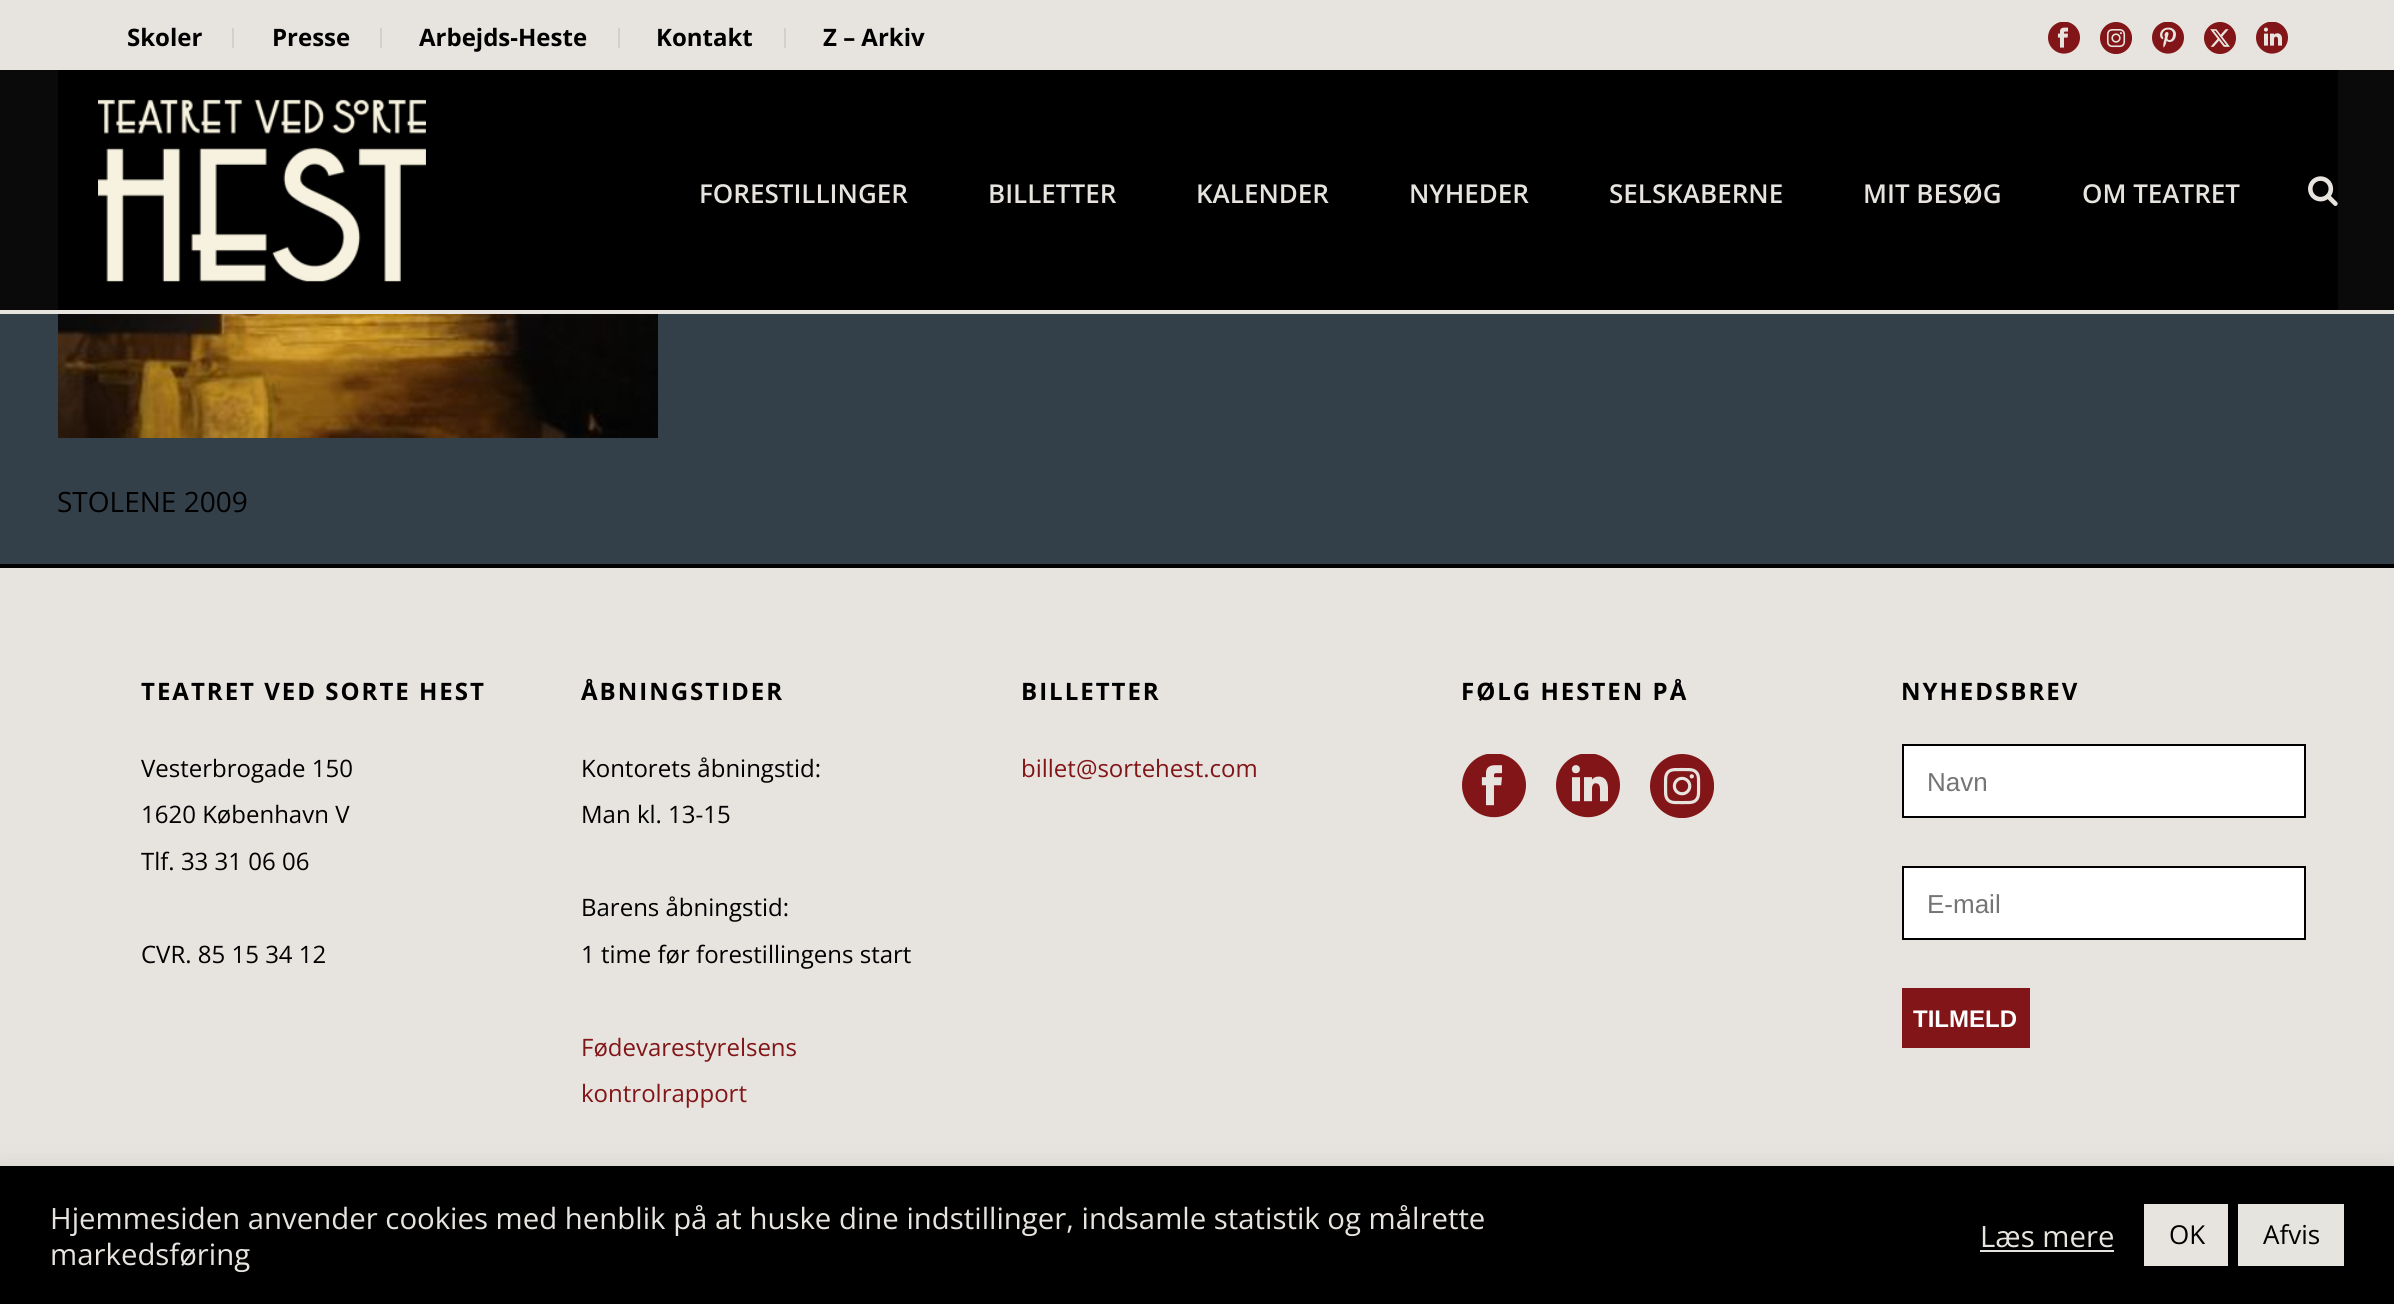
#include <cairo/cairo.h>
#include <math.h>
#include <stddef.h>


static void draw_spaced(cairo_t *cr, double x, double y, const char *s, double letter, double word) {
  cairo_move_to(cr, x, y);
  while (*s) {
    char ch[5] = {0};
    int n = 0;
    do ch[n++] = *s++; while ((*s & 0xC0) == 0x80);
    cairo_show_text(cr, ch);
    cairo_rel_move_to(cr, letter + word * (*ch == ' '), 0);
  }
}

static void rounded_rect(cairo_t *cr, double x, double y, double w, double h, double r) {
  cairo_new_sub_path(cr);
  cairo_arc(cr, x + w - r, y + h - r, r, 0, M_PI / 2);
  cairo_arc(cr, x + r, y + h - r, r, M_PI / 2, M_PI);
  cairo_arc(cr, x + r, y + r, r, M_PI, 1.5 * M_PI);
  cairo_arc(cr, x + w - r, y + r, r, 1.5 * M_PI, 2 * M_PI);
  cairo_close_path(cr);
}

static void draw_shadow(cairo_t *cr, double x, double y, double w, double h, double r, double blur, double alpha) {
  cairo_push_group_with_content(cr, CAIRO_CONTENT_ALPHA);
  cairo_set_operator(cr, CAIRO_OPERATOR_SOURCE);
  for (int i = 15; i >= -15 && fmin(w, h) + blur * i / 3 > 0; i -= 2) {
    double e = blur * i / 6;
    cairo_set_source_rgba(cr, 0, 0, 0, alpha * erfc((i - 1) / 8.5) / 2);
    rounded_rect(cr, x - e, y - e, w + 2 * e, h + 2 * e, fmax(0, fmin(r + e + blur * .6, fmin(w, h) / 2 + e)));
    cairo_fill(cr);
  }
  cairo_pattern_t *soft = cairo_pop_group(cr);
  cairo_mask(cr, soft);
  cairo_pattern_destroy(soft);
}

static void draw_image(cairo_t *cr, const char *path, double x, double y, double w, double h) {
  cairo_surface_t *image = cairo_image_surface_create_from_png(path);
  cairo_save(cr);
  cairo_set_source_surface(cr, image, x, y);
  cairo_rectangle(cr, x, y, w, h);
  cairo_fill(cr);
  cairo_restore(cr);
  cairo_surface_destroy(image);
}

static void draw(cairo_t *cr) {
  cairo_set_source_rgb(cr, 52 / 255.0, 64 / 255.0, 73 / 255.0);
  cairo_paint(cr);
  cairo_set_source_rgb(cr, 231 / 255.0, 228 / 255.0, 223 / 255.0);
  cairo_rectangle(cr, 0, 0, 2394, 70);
  cairo_fill(cr);
  cairo_set_source_rgb(cr, 210 / 255.0, 208 / 255.0, 204 / 255.0);
  cairo_rectangle(cr, 232, 28, 2, 20);
  cairo_fill(cr);
  cairo_rectangle(cr, 380, 28, 2, 20);
  cairo_fill(cr);
  cairo_rectangle(cr, 618, 28, 2, 20);
  cairo_fill(cr);
  cairo_rectangle(cr, 784, 28, 2, 20);
  cairo_fill(cr);
  draw_image(cr, "images/1.png", 2048, 22, 32, 32);
  draw_image(cr, "images/2.png", 2100, 22, 32, 32);
  draw_image(cr, "images/3.png", 2152, 22, 32, 32);
  draw_image(cr, "images/4.png", 2204, 22, 32, 32);
  draw_image(cr, "images/5.png", 2256, 22, 32, 32);
  cairo_set_source_rgb(cr, 231 / 255.0, 228 / 255.0, 223 / 255.0);
  cairo_rectangle(cr, 0, 310, 2394, 4);
  cairo_fill(cr);
  cairo_set_source_rgb(cr, 10 / 255.0, 10 / 255.0, 10 / 255.0);
  cairo_rectangle(cr, 0, 70, 2394, 240);
  cairo_fill(cr);
  cairo_set_source_rgb(cr, 0, 0, 0);
  cairo_rectangle(cr, 58, 70, 2280, 240);
  cairo_fill(cr);
  draw_image(cr, "images/6.png", 98, 99, 328, 183);
  draw_image(cr, "images/7.png", 2308, 176, 30, 30);
  draw_image(cr, "images/8.png", 58, 314, 600, 124);
  cairo_set_source_rgb(cr, 231 / 255.0, 228 / 255.0, 223 / 255.0);
  cairo_rectangle(cr, 0, 568, 2394, 598);
  cairo_fill(cr);
  cairo_set_source_rgb(cr, 0, 0, 0);
  cairo_rectangle(cr, 0, 564, 2394, 4);
  cairo_fill(cr);
  draw_image(cr, "images/9.png", 1462, 754, 64, 64);
  draw_image(cr, "images/10.png", 1556, 754, 64, 64);
  draw_image(cr, "images/11.png", 1650, 754, 64, 64);
  cairo_set_source_rgb(cr, 1, 1, 1);
  cairo_rectangle(cr, 1903, 745, 402, 72);
  cairo_fill_preserve(cr);
  cairo_set_source_rgb(cr, 0, 0, 0);
  cairo_stroke(cr);
  cairo_set_source_rgb(cr, 1, 1, 1);
  cairo_rectangle(cr, 1903, 867, 402, 72);
  cairo_fill_preserve(cr);
  cairo_set_source_rgb(cr, 0, 0, 0);
  cairo_stroke(cr);
  cairo_set_source_rgb(cr, 130 / 255.0, 21 / 255.0, 23 / 255.0);
  cairo_rectangle(cr, 1902, 988, 128, 60);
  cairo_fill(cr);
  cairo_set_source_rgb(cr, 172 / 255.0, 171 / 255.0, 171 / 255.0);
  draw_shadow(cr, 0, 1164, 2394, 138, 0, 10, 0.3);
  cairo_set_source_rgb(cr, 0, 0, 0);
  cairo_rectangle(cr, 0, 1166, 2394, 138);
  cairo_fill(cr);
  cairo_set_source_rgb(cr, 231 / 255.0, 228 / 255.0, 223 / 255.0);
  cairo_rectangle(cr, 1980, 1250, 134, 2);
  cairo_fill(cr);
  cairo_rectangle(cr, 2144, 1204, 84, 62);
  cairo_fill(cr);
  cairo_set_source_rgb(cr, 230 / 255.0, 228 / 255.0, 222 / 255.0);
  cairo_rectangle(cr, 2238, 1204, 106, 62);
  cairo_fill(cr);
  cairo_select_font_face(cr, "Open Sans", CAIRO_FONT_SLANT_NORMAL, CAIRO_FONT_WEIGHT_BOLD);
  cairo_set_font_size(cr, 24);
  cairo_set_source_rgb(cr, 0, 0, 0);
  cairo_move_to(cr, 127, 46);
  cairo_show_text(cr, "Skoler");
  cairo_move_to(cr, 272, 46);
  cairo_show_text(cr, "Presse");
  cairo_move_to(cr, 419, 46);
  cairo_show_text(cr, "Arbejds-Heste");
  cairo_move_to(cr, 656, 46);
  cairo_show_text(cr, "Kontakt");
  cairo_move_to(cr, 823, 46);
  cairo_show_text(cr, "Z – Arkiv");
  cairo_select_font_face(cr, "Open Sans SemiBold", CAIRO_FONT_SLANT_NORMAL, CAIRO_FONT_WEIGHT_NORMAL);
  cairo_set_font_size(cr, 26);
  cairo_set_source_rgb(cr, 231 / 255.0, 228 / 255.0, 223 / 255.0);
  cairo_move_to(cr, 699, 203);
  cairo_show_text(cr, "FORESTILLINGER");
  cairo_move_to(cr, 988, 203);
  cairo_show_text(cr, "BILLETTER");
  cairo_move_to(cr, 1196, 203);
  cairo_show_text(cr, "KALENDER");
  cairo_move_to(cr, 1409, 203);
  cairo_show_text(cr, "NYHEDER");
  cairo_move_to(cr, 1609, 203);
  cairo_show_text(cr, "SELSKABERNE");
  cairo_move_to(cr, 1863, 203);
  cairo_show_text(cr, "MIT BESØG");
  cairo_move_to(cr, 2082, 203);
  cairo_show_text(cr, "OM TEATRET");
  cairo_select_font_face(cr, "Open Sans", CAIRO_FONT_SLANT_NORMAL, CAIRO_FONT_WEIGHT_NORMAL);
  cairo_set_font_size(cr, 28);
  cairo_set_source_rgb(cr, 0, 0, 0);
  cairo_move_to(cr, 57, 512);
  cairo_show_text(cr, "STOLENE 2009");
  cairo_select_font_face(cr, "Open Sans", CAIRO_FONT_SLANT_NORMAL, CAIRO_FONT_WEIGHT_BOLD);
  cairo_set_font_size(cr, 24);
  draw_spaced(cr, 141, 700, "TEATRET VED SORTE HEST", 2, 0);
  cairo_select_font_face(cr, "Open Sans", CAIRO_FONT_SLANT_NORMAL, CAIRO_FONT_WEIGHT_NORMAL);
  cairo_move_to(cr, 141, 777);
  cairo_show_text(cr, "Vesterbrogade 150");
  cairo_move_to(cr, 141, 823);
  cairo_show_text(cr, "1620 København V");
  cairo_move_to(cr, 141, 870);
  cairo_show_text(cr, "Tlf. 33 31 06 06");
  cairo_move_to(cr, 141, 963);
  cairo_show_text(cr, "CVR. 85 15 34 12");
  cairo_select_font_face(cr, "Open Sans", CAIRO_FONT_SLANT_NORMAL, CAIRO_FONT_WEIGHT_BOLD);
  draw_spaced(cr, 581, 700, "ÅBNINGSTIDER", 2, 0);
  cairo_select_font_face(cr, "Open Sans", CAIRO_FONT_SLANT_NORMAL, CAIRO_FONT_WEIGHT_NORMAL);
  cairo_move_to(cr, 581, 777);
  cairo_show_text(cr, "Kontorets åbningstid:");
  cairo_move_to(cr, 581, 823);
  cairo_show_text(cr, "Man kl. 13-15");
  cairo_move_to(cr, 581, 916);
  cairo_show_text(cr, "Barens åbningstid:");
  cairo_move_to(cr, 581, 963);
  cairo_show_text(cr, "1 time før forestillingens start");
  cairo_set_source_rgb(cr, 130 / 255.0, 21 / 255.0, 23 / 255.0);
  cairo_move_to(cr, 581, 1056);
  cairo_show_text(cr, "Fødevarestyrelsens");
  cairo_move_to(cr, 581, 1102);
  cairo_show_text(cr, "kontrolrapport");
  cairo_select_font_face(cr, "Open Sans", CAIRO_FONT_SLANT_NORMAL, CAIRO_FONT_WEIGHT_BOLD);
  cairo_set_source_rgb(cr, 0, 0, 0);
  draw_spaced(cr, 1021, 700, "BILLETTER", 2, 0);
  cairo_select_font_face(cr, "Open Sans", CAIRO_FONT_SLANT_NORMAL, CAIRO_FONT_WEIGHT_NORMAL);
  cairo_set_source_rgb(cr, 130 / 255.0, 21 / 255.0, 23 / 255.0);
  cairo_move_to(cr, 1021, 777);
  cairo_show_text(cr, "billet@sortehest.com");
  cairo_select_font_face(cr, "Open Sans", CAIRO_FONT_SLANT_NORMAL, CAIRO_FONT_WEIGHT_BOLD);
  cairo_set_source_rgb(cr, 0, 0, 0);
  draw_spaced(cr, 1461, 700, "FØLG HESTEN PÅ", 2, 0);
  draw_spaced(cr, 1901, 700, "NYHEDSBREV", 2, 0);
  cairo_select_font_face(cr, "Liberation Sans", CAIRO_FONT_SLANT_NORMAL, CAIRO_FONT_WEIGHT_NORMAL);
  cairo_set_font_size(cr, 26);
  cairo_set_source_rgb(cr, 117 / 255.0, 117 / 255.0, 117 / 255.0);
  cairo_move_to(cr, 1927, 791);
  cairo_show_text(cr, "Navn");
  cairo_move_to(cr, 1927, 913);
  cairo_show_text(cr, "E-mail");
  cairo_select_font_face(cr, "Liberation Sans", CAIRO_FONT_SLANT_NORMAL, CAIRO_FONT_WEIGHT_BOLD);
  cairo_set_font_size(cr, 24);
  cairo_set_source_rgb(cr, 1, 1, 1);
  cairo_move_to(cr, 1913, 1027);
  cairo_show_text(cr, "TILMELD");
  cairo_select_font_face(cr, "Open Sans", CAIRO_FONT_SLANT_NORMAL, CAIRO_FONT_WEIGHT_NORMAL);
  cairo_set_font_size(cr, 29.35);
  cairo_set_source_rgb(cr, 231 / 255.0, 228 / 255.0, 223 / 255.0);
  cairo_move_to(cr, 50, 1229);
  cairo_show_text(cr, "Hjemmesiden anvender cookies med henblik på at huske dine indstillinger, indsamle statistik og målrette");
  cairo_move_to(cr, 50, 1265);
  cairo_show_text(cr, "markedsføring");
  cairo_move_to(cr, 1980, 1247);
  cairo_show_text(cr, "Læs mere");
  cairo_set_font_size(cr, 26);
  cairo_set_source_rgb(cr, 0, 0, 0);
  cairo_move_to(cr, 2169, 1244);
  cairo_show_text(cr, "OK");
  cairo_move_to(cr, 2263, 1244);
  cairo_show_text(cr, "Afvis");
}

int main(void) {
  cairo_surface_t *surface = cairo_image_surface_create(CAIRO_FORMAT_RGB24, 2394, 1304);
  cairo_t *cr = cairo_create(surface);
  cairo_font_options_t *options = cairo_font_options_create();
  cairo_font_options_set_hint_metrics(options, CAIRO_HINT_METRICS_OFF);
  cairo_font_options_set_hint_style(options, CAIRO_HINT_STYLE_NONE);
  cairo_set_font_options(cr, options);
  cairo_set_miter_limit(cr, 4);
  draw(cr);
  cairo_surface_write_to_png(surface, "out.png");
  cairo_font_options_destroy(options);
  cairo_destroy(cr);
  cairo_surface_destroy(surface);
  return 0;
}
